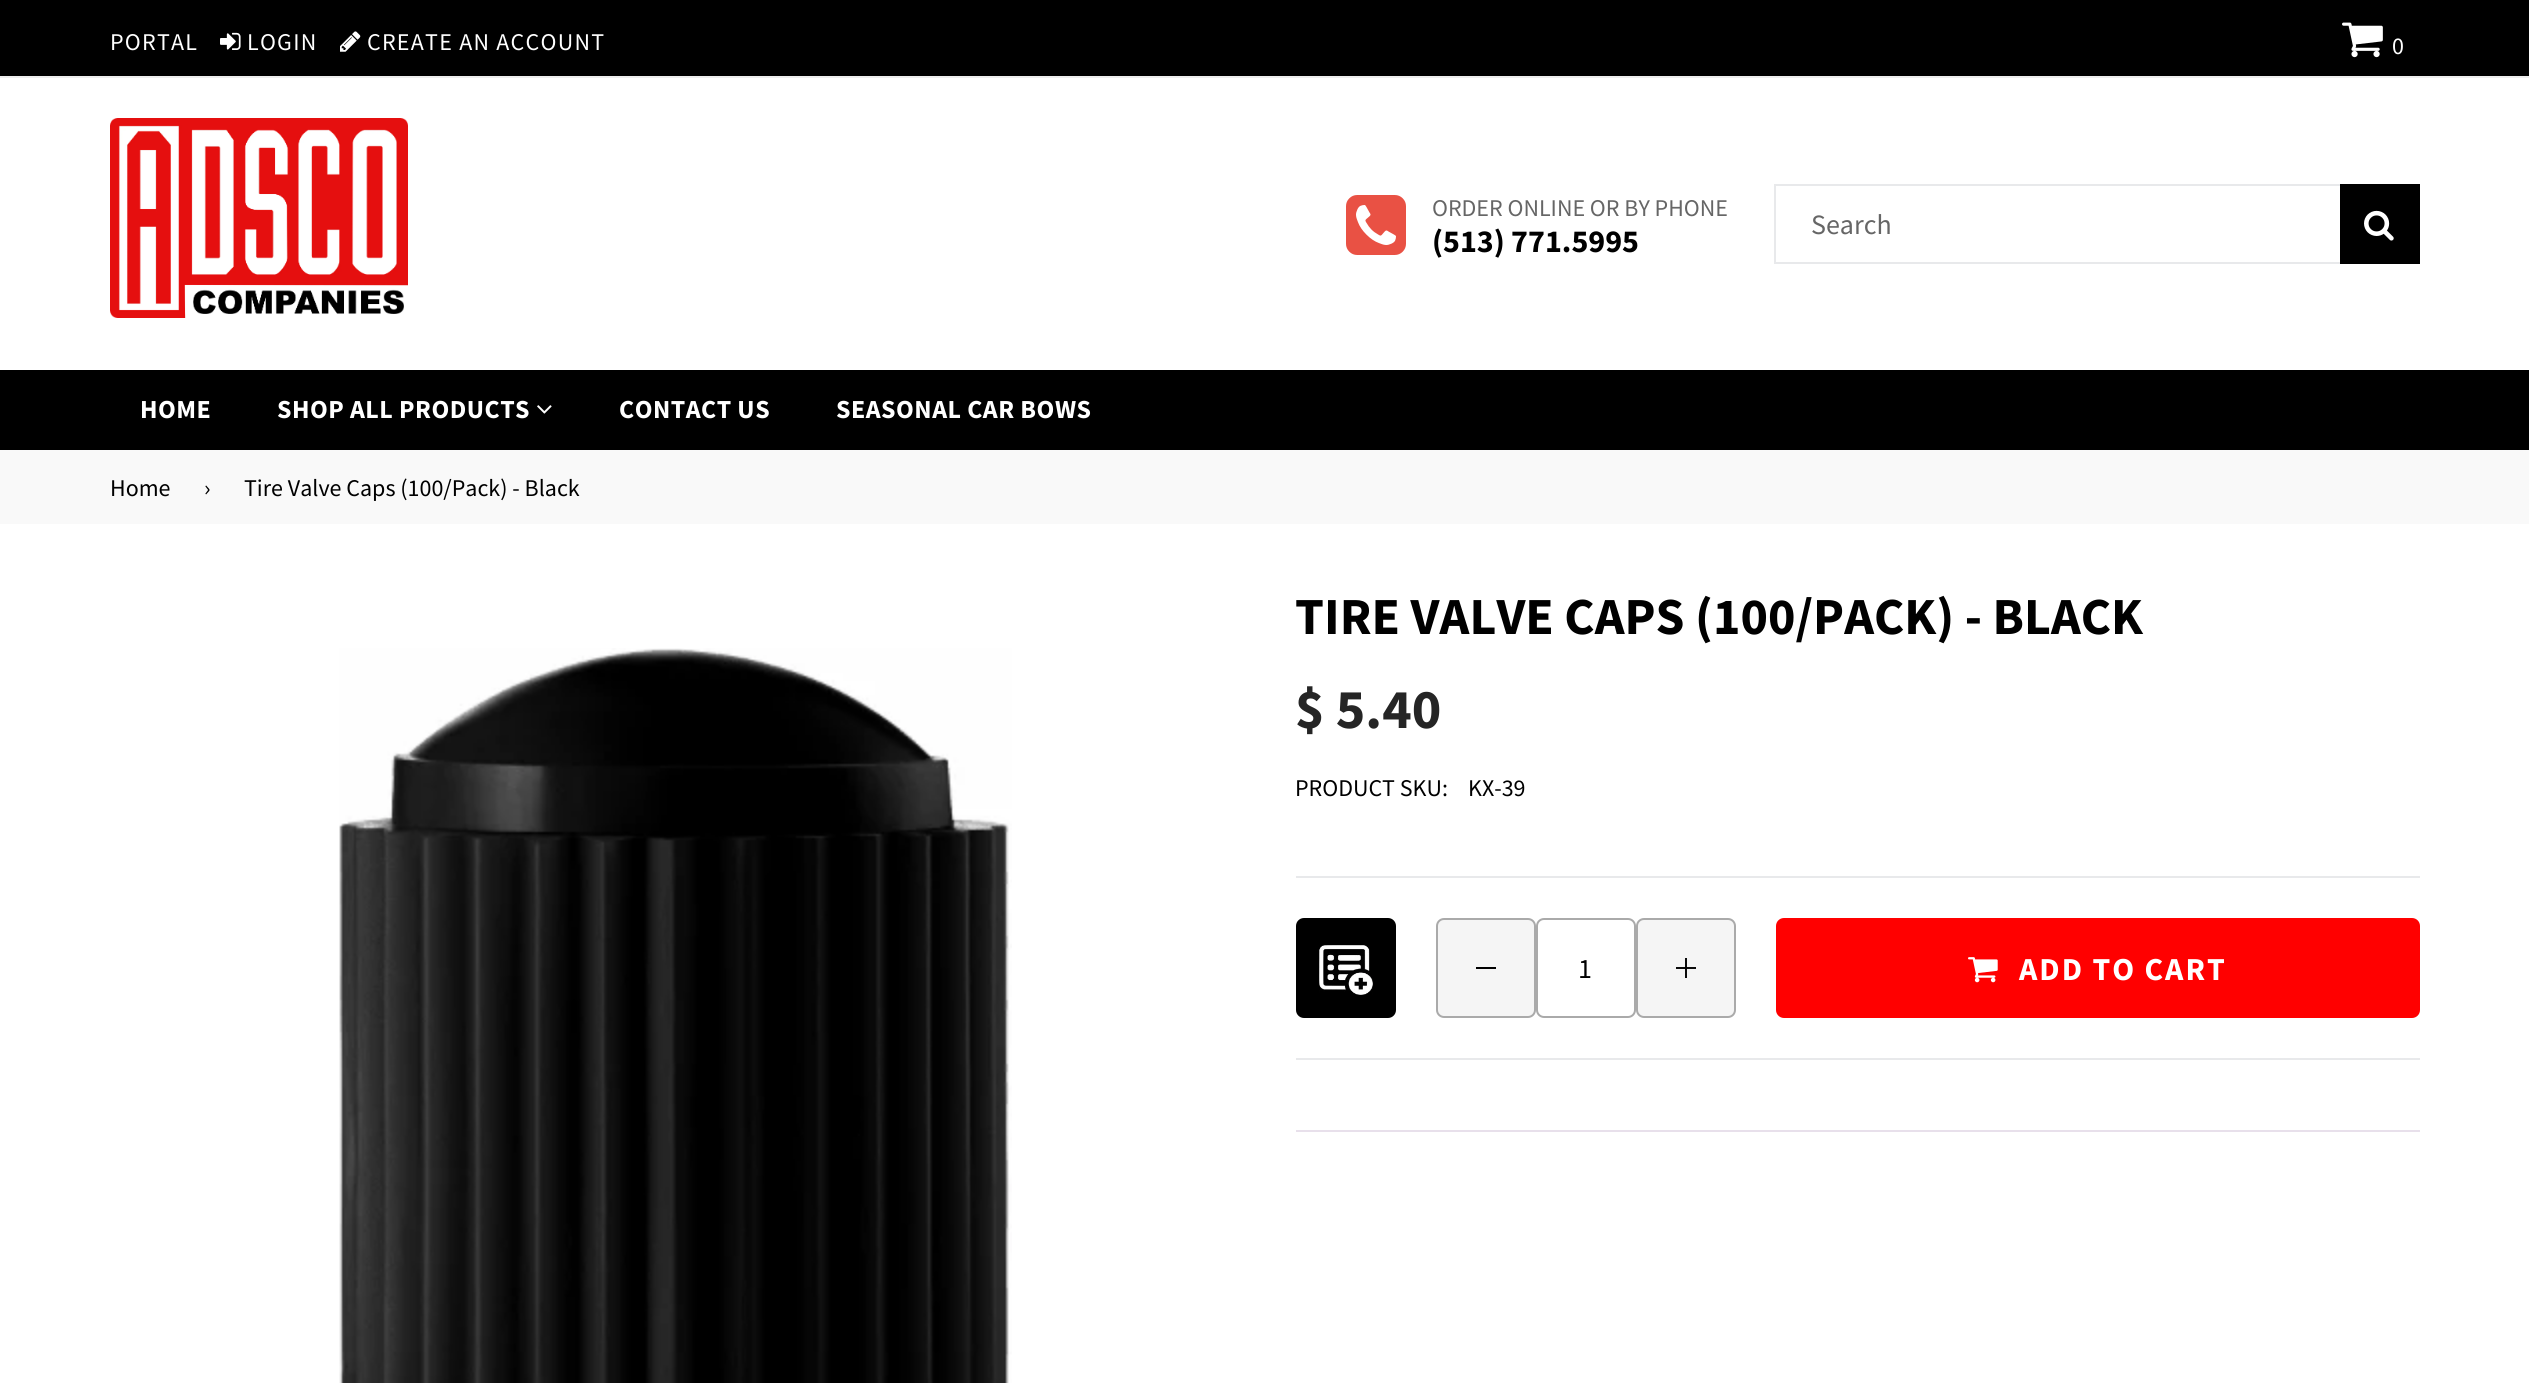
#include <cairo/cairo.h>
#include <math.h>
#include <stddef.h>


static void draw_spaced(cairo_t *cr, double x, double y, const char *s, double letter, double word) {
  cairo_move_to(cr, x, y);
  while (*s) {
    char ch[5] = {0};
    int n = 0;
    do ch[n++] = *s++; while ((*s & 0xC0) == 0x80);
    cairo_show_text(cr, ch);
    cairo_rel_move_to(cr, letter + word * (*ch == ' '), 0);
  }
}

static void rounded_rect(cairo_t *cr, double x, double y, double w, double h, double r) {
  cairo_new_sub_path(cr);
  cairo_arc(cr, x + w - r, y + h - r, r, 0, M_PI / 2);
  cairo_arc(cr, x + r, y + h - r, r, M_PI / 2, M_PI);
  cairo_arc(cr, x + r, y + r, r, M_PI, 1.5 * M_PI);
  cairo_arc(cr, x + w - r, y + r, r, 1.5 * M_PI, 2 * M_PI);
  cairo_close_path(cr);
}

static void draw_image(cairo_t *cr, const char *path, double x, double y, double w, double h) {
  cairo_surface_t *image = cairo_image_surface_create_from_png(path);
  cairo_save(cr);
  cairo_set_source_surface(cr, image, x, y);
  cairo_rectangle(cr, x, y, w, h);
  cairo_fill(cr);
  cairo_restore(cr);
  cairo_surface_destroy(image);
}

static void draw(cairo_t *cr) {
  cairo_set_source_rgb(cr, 1, 1, 1);
  cairo_paint(cr);
  cairo_set_source_rgb(cr, 0, 0, 0);
  cairo_rectangle(cr, 0, 0, 2529, 76);
  cairo_fill(cr);
  cairo_set_source_rgb(cr, 238 / 255.0, 238 / 255.0, 238 / 255.0);
  cairo_rectangle(cr, 0, 76, 2529, 2);
  cairo_fill(cr);
  draw_image(cr, "images/1.png", 220, 32, 21, 18);
  draw_image(cr, "images/2.png", 340, 31, 21, 21);
  draw_image(cr, "images/3.png", 2342, 22, 41, 36);
  draw_image(cr, "images/4.png", 110, 118, 298, 200);
  draw_image(cr, "images/5.png", 1346, 195, 60, 60);
  cairo_set_source_rgb(cr, 232 / 255.0, 233 / 255.0, 235 / 255.0);
  cairo_rectangle(cr, 1774, 184, 566, 2);
  cairo_fill(cr);
  cairo_rectangle(cr, 1774, 262, 566, 2);
  cairo_fill(cr);
  cairo_rectangle(cr, 1774, 184, 2, 80);
  cairo_fill(cr);
  cairo_set_source_rgb(cr, 0, 0, 0);
  cairo_rectangle(cr, 2340, 184, 80, 80);
  cairo_fill(cr);
  draw_image(cr, "images/6.png", 2364, 210, 30, 31);
  cairo_rectangle(cr, 0, 370, 2529, 80);
  cairo_fill(cr);
  draw_image(cr, "images/7.png", 537, 405, 15, 9);
  cairo_set_source_rgb(cr, 249 / 255.0, 249 / 255.0, 249 / 255.0);
  cairo_rectangle(cr, 0, 450, 2529, 74);
  cairo_fill(cr);
  draw_image(cr, "images/8.png", 339, 648, 673, 735);
  cairo_set_source_rgb(cr, 232 / 255.0, 233 / 255.0, 235 / 255.0);
  cairo_rectangle(cr, 1296, 876, 1124, 2);
  cairo_fill(cr);
  cairo_set_source_rgb(cr, 0, 0, 0);
  rounded_rect(cr, 1296, 918, 100, 100, 8);
  cairo_fill(cr);
  draw_image(cr, "images/9.png", 1319, 945, 54, 50);
  cairo_set_source_rgb(cr, 245 / 255.0, 245 / 255.0, 245 / 255.0);
  rounded_rect(cr, 1437, 919, 98, 98, 7);
  cairo_fill_preserve(cr);
  cairo_set_source_rgb(cr, 170 / 255.0, 170 / 255.0, 170 / 255.0);
  cairo_stroke(cr);
  cairo_set_source_rgb(cr, 0, 0, 0);
  cairo_rectangle(cr, 1476, 967, 20, 2);
  cairo_fill(cr);
  rounded_rect(cr, 1537, 919, 98, 98, 7);
  cairo_set_source_rgb(cr, 170 / 255.0, 170 / 255.0, 170 / 255.0);
  cairo_stroke(cr);
  cairo_set_source_rgb(cr, 245 / 255.0, 245 / 255.0, 245 / 255.0);
  rounded_rect(cr, 1637, 919, 98, 98, 7);
  cairo_fill_preserve(cr);
  cairo_set_source_rgb(cr, 170 / 255.0, 170 / 255.0, 170 / 255.0);
  cairo_stroke(cr);
  draw_image(cr, "images/10.png", 1676, 958, 20, 20);
  cairo_set_source_rgb(cr, 1, 0, 0);
  rounded_rect(cr, 1776, 918, 644, 100, 8);
  cairo_fill(cr);
  draw_image(cr, "images/11.png", 1968, 957, 30, 26);
  cairo_set_source_rgb(cr, 232 / 255.0, 233 / 255.0, 235 / 255.0);
  cairo_rectangle(cr, 1296, 1058, 1124, 2);
  cairo_fill(cr);
  cairo_set_source_rgb(cr, 232 / 255.0, 224 / 255.0, 235 / 255.0);
  cairo_rectangle(cr, 1296, 1130, 1124, 2);
  cairo_fill(cr);
  cairo_select_font_face(cr, "Source Sans Pro", CAIRO_FONT_SLANT_NORMAL, CAIRO_FONT_WEIGHT_NORMAL);
  cairo_set_font_size(cr, 24);
  cairo_set_source_rgb(cr, 1, 1, 1);
  draw_spaced(cr, 110, 50, "PORTAL", 1.25, 0);
  draw_spaced(cr, 247, 50, "LOGIN", 1.25, 0);
  draw_spaced(cr, 367, 50, "CREATE AN ACCOUNT", 1.25, 0);
  draw_spaced(cr, 2392, 54, "0", 2, 0);
  cairo_set_source_rgb(cr, 102 / 255.0, 102 / 255.0, 102 / 255.0);
  cairo_move_to(cr, 1432, 216);
  cairo_show_text(cr, "ORDER ONLINE OR BY PHONE");
  cairo_select_font_face(cr, "Source Sans Pro", CAIRO_FONT_SLANT_NORMAL, CAIRO_FONT_WEIGHT_BOLD);
  cairo_set_font_size(cr, 32);
  cairo_set_source_rgb(cr, 0, 0, 0);
  cairo_move_to(cr, 1432, 252);
  cairo_show_text(cr, "(513) 771.5995");
  cairo_select_font_face(cr, "Source Sans Pro", CAIRO_FONT_SLANT_NORMAL, CAIRO_FONT_WEIGHT_NORMAL);
  cairo_set_font_size(cr, 28);
  cairo_set_source_rgb(cr, 102 / 255.0, 102 / 255.0, 102 / 255.0);
  cairo_move_to(cr, 1811, 234);
  cairo_show_text(cr, "Search");
  cairo_select_font_face(cr, "Source Sans Pro", CAIRO_FONT_SLANT_NORMAL, CAIRO_FONT_WEIGHT_BOLD);
  cairo_set_font_size(cr, 26);
  cairo_set_source_rgb(cr, 1, 1, 1);
  draw_spaced(cr, 140, 418, "HOME", 0.5, 0);
  draw_spaced(cr, 277, 418, "SHOP ALL PRODUCTS", 0.5, 0);
  draw_spaced(cr, 619, 418, "CONTACT US", 0.5, 0);
  draw_spaced(cr, 836, 418, "SEASONAL CAR BOWS", 0.5, 0);
  cairo_select_font_face(cr, "Source Sans Pro", CAIRO_FONT_SLANT_NORMAL, CAIRO_FONT_WEIGHT_NORMAL);
  cairo_set_font_size(cr, 24);
  cairo_set_source_rgb(cr, 0, 0, 0);
  cairo_move_to(cr, 110, 496);
  cairo_show_text(cr, "Home");
  cairo_move_to(cr, 204, 496);
  cairo_show_text(cr, "›");
  cairo_move_to(cr, 244, 496);
  cairo_show_text(cr, "Tire Valve Caps (100/Pack) - Black");
  cairo_select_font_face(cr, "Source Sans Pro", CAIRO_FONT_SLANT_NORMAL, CAIRO_FONT_WEIGHT_BOLD);
  cairo_set_font_size(cr, 52);
  draw_spaced(cr, 1295, 634, "TIRE VALVE CAPS (100/PACK) - BLACK", 0.05, 0);
  cairo_set_font_size(cr, 56);
  cairo_set_source_rgb(cr, 37 / 255.0, 37 / 255.0, 37 / 255.0);
  cairo_move_to(cr, 1295, 728);
  cairo_show_text(cr, "$ 5.40");
  cairo_select_font_face(cr, "Source Sans Pro", CAIRO_FONT_SLANT_NORMAL, CAIRO_FONT_WEIGHT_NORMAL);
  cairo_set_font_size(cr, 24);
  cairo_set_source_rgb(cr, 0, 0, 0);
  cairo_move_to(cr, 1295, 796);
  cairo_show_text(cr, "PRODUCT SKU:");
  cairo_move_to(cr, 1468, 796);
  cairo_show_text(cr, "KX-39");
  cairo_set_font_size(cr, 28);
  cairo_move_to(cr, 1578, 978);
  cairo_show_text(cr, "1");
  cairo_select_font_face(cr, "Source Sans Pro", CAIRO_FONT_SLANT_NORMAL, CAIRO_FONT_WEIGHT_BOLD);
  cairo_set_font_size(cr, 32);
  cairo_set_source_rgb(cr, 1, 1, 1);
  draw_spaced(cr, 2019, 980, "ADD TO CART", 2, 0);
}

int main(void) {
  cairo_surface_t *surface = cairo_image_surface_create(CAIRO_FORMAT_RGB24, 2529, 1383);
  cairo_t *cr = cairo_create(surface);
  cairo_font_options_t *options = cairo_font_options_create();
  cairo_font_options_set_hint_metrics(options, CAIRO_HINT_METRICS_OFF);
  cairo_font_options_set_hint_style(options, CAIRO_HINT_STYLE_NONE);
  cairo_set_font_options(cr, options);
  cairo_set_miter_limit(cr, 4);
  draw(cr);
  cairo_surface_write_to_png(surface, "out.png");
  cairo_font_options_destroy(options);
  cairo_destroy(cr);
  cairo_surface_destroy(surface);
  return 0;
}
